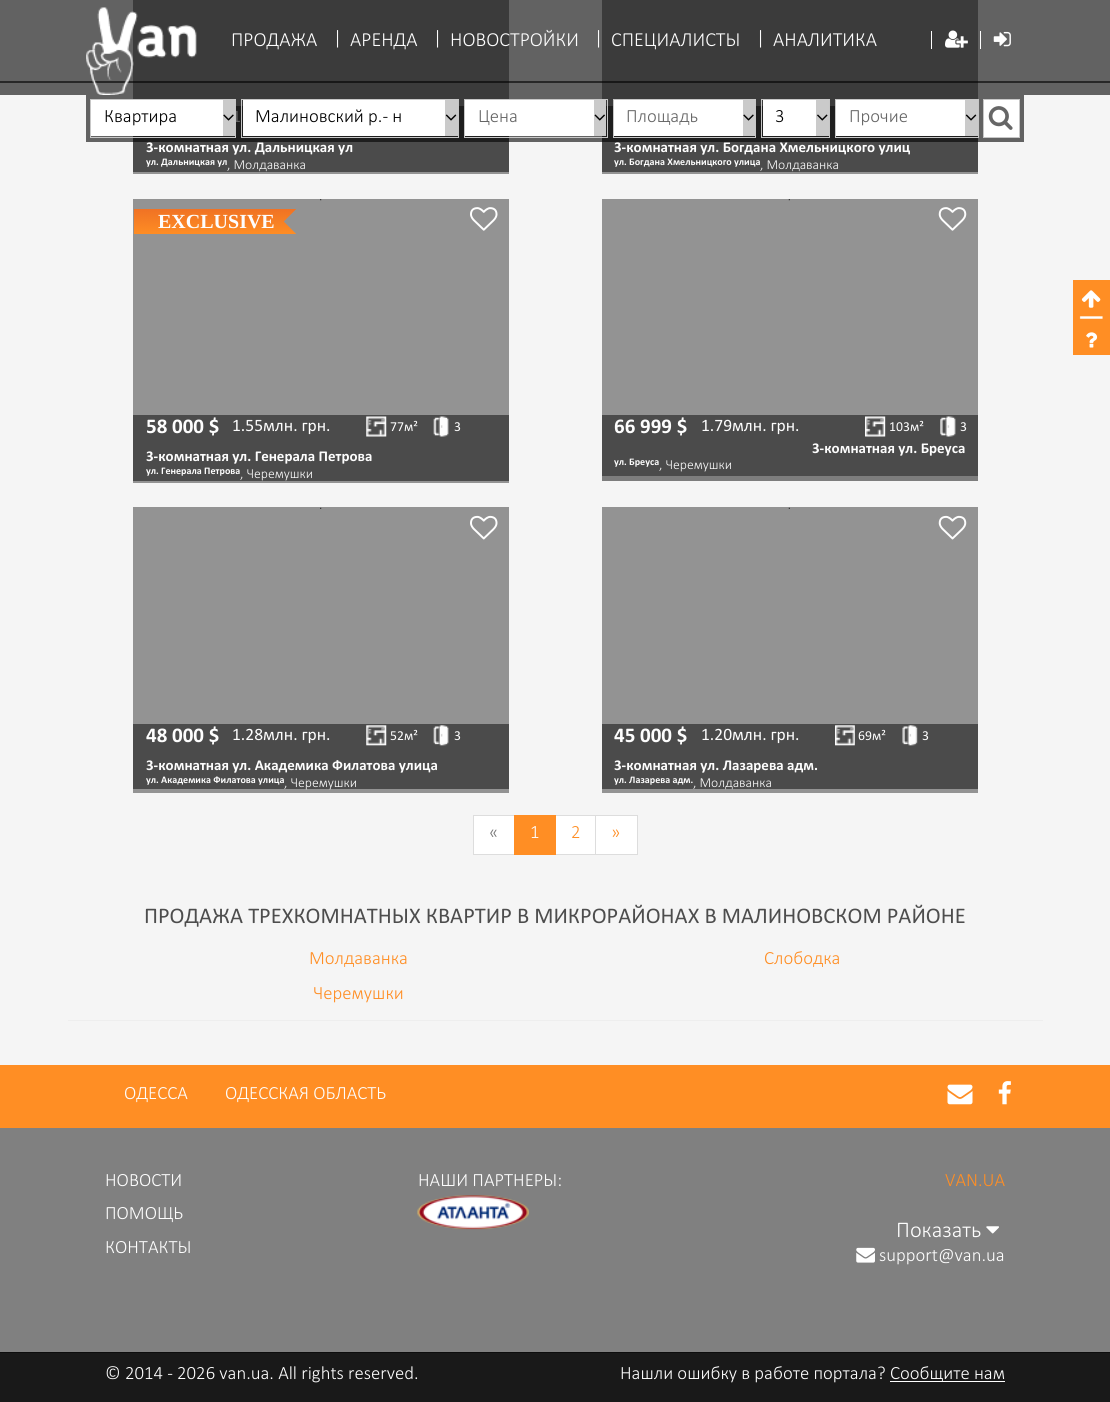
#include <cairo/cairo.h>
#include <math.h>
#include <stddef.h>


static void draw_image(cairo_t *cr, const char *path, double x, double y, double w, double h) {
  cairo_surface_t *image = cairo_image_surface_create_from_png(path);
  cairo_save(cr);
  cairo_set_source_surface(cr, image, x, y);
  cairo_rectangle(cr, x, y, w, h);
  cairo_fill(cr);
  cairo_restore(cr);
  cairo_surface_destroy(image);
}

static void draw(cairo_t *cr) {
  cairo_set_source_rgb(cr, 25 / 255.0, 25 / 255.0, 25 / 255.0);
  cairo_paint(cr);
  cairo_set_source_rgb(cr, 98 / 255.0, 98 / 255.0, 98 / 255.0);
  cairo_rectangle(cr, 0, 0, 1110, 81);
  cairo_fill(cr);
  cairo_rectangle(cr, 0, 83, 1110, 12);
  cairo_fill(cr);
  cairo_set_source_rgb(cr, 39 / 255.0, 39 / 255.0, 39 / 255.0);
  cairo_rectangle(cr, 0, 81, 1110, 2);
  cairo_fill(cr);
  cairo_set_source_rgb(cr, 59 / 255.0, 59 / 255.0, 59 / 255.0);
  cairo_rectangle(cr, 133, 0, 376, 81);
  cairo_fill(cr);
  cairo_set_source_rgb(cr, 245 / 255.0, 245 / 255.0, 245 / 255.0);
  cairo_rectangle(cr, 0, 95, 1110, 970);
  cairo_fill(cr);
  cairo_set_source_rgb(cr, 98 / 255.0, 98 / 255.0, 98 / 255.0);
  cairo_rectangle(cr, 86, 95, 938, 47);
  cairo_fill(cr);
  cairo_set_source_rgb(cr, 59 / 255.0, 59 / 255.0, 59 / 255.0);
  cairo_rectangle(cr, 133, 83, 376, 23);
  cairo_fill(cr);
  cairo_set_source_rgb(cr, 24 / 255.0, 24 / 255.0, 24 / 255.0);
  cairo_rectangle(cr, 133, 81, 376, 2);
  cairo_fill(cr);
  draw_image(cr, "images/1.png", 86, 7, 111, 88);
  cairo_set_source_rgb(cr, 59 / 255.0, 59 / 255.0, 59 / 255.0);
  cairo_rectangle(cr, 602, 0, 376, 81);
  cairo_fill(cr);
  cairo_set_source_rgb(cr, 1, 1, 1);
  cairo_rectangle(cr, 931, 31, 1, 18);
  cairo_fill(cr);
  draw_image(cr, "images/2.png", 945, 30, 23, 18);
  cairo_rectangle(cr, 980, 31, 1, 18);
  cairo_fill(cr);
  draw_image(cr, "images/3.png", 993, 31, 18, 16);
  cairo_set_source_rgb(cr, 125 / 255.0, 125 / 255.0, 125 / 255.0);
  cairo_rectangle(cr, 602, 476, 376, 5);
  cairo_fill(cr);
  cairo_set_source_rgb(cr, 30 / 255.0, 30 / 255.0, 30 / 255.0);
  cairo_rectangle(cr, 133, 106, 376, 36);
  cairo_fill(cr);
  cairo_rectangle(cr, 241.5, 99.5, 217, 38);
  cairo_set_source_rgb(cr, 199 / 255.0, 199 / 255.0, 199 / 255.0);
  cairo_set_line_width(cr, 1);
  cairo_stroke(cr);
  cairo_set_source_rgb(cr, 1, 1, 1);
  cairo_rectangle(cr, 243, 100, 202, 36);
  cairo_fill(cr);
  cairo_set_source_rgb(cr, 202 / 255.0, 202 / 255.0, 202 / 255.0);
  cairo_rectangle(cr, 445, 100, 13, 36);
  cairo_fill(cr);
  draw_image(cr, "images/5.png", 445, 114, 12, 7);
  cairo_set_source_rgb(cr, 59 / 255.0, 59 / 255.0, 59 / 255.0);
  cairo_rectangle(cr, 602, 83, 376, 23);
  cairo_fill(cr);
  cairo_set_source_rgb(cr, 30 / 255.0, 30 / 255.0, 30 / 255.0);
  cairo_rectangle(cr, 602, 106, 376, 36);
  cairo_fill(cr);
  cairo_rectangle(cr, 464.5, 99.5, 143, 38);
  cairo_set_source_rgb(cr, 199 / 255.0, 199 / 255.0, 199 / 255.0);
  cairo_stroke(cr);
  cairo_set_source_rgb(cr, 1, 1, 1);
  cairo_rectangle(cr, 465, 100, 129, 36);
  cairo_fill(cr);
  cairo_set_source_rgb(cr, 202 / 255.0, 202 / 255.0, 202 / 255.0);
  cairo_rectangle(cr, 594, 100, 12, 36);
  cairo_fill(cr);
  draw_image(cr, "images/6.png", 594, 114, 11, 7);
  cairo_rectangle(cr, 613.5, 99.5, 142, 38);
  cairo_set_source_rgb(cr, 199 / 255.0, 199 / 255.0, 199 / 255.0);
  cairo_stroke(cr);
  cairo_set_source_rgb(cr, 1, 1, 1);
  cairo_rectangle(cr, 614, 100, 129, 36);
  cairo_fill(cr);
  cairo_set_source_rgb(cr, 202 / 255.0, 202 / 255.0, 202 / 255.0);
  cairo_rectangle(cr, 743, 100, 12, 36);
  cairo_fill(cr);
  draw_image(cr, "images/4.png", 743, 114, 11, 7);
  cairo_rectangle(cr, 761.5, 99.5, 68, 38);
  cairo_set_source_rgb(cr, 199 / 255.0, 199 / 255.0, 199 / 255.0);
  cairo_stroke(cr);
  cairo_set_source_rgb(cr, 1, 1, 1);
  cairo_rectangle(cr, 763, 100, 53, 36);
  cairo_fill(cr);
  cairo_set_source_rgb(cr, 202 / 255.0, 202 / 255.0, 202 / 255.0);
  cairo_rectangle(cr, 816, 100, 13, 36);
  cairo_fill(cr);
  draw_image(cr, "images/7.png", 817, 114, 11, 7);
  cairo_rectangle(cr, 835.5, 99.5, 143, 38);
  cairo_set_source_rgb(cr, 199 / 255.0, 199 / 255.0, 199 / 255.0);
  cairo_stroke(cr);
  cairo_set_source_rgb(cr, 1, 1, 1);
  cairo_rectangle(cr, 836, 100, 129, 36);
  cairo_fill(cr);
  cairo_set_source_rgb(cr, 202 / 255.0, 202 / 255.0, 202 / 255.0);
  cairo_rectangle(cr, 965, 100, 13, 36);
  cairo_fill(cr);
  draw_image(cr, "images/5.png", 965, 114, 12, 7);
  cairo_set_source_rgb(cr, 1, 1, 1);
  cairo_rectangle(cr, 983.5, 99.5, 36, 38);
  cairo_fill_preserve(cr);
  cairo_set_source_rgb(cr, 199 / 255.0, 199 / 255.0, 199 / 255.0);
  cairo_stroke(cr);
  draw_image(cr, "images/8.png", 988, 106, 25, 24);
  cairo_set_source_rgb(cr, 147 / 255.0, 147 / 255.0, 147 / 255.0);
  cairo_rectangle(cr, 133, 172, 376, 2);
  cairo_fill(cr);
  cairo_set_source_rgb(cr, 75 / 255.0, 75 / 255.0, 75 / 255.0);
  cairo_rectangle(cr, 133, 142, 376, 30);
  cairo_fill(cr);
  cairo_set_source_rgb(cr, 147 / 255.0, 147 / 255.0, 147 / 255.0);
  cairo_rectangle(cr, 602, 172, 376, 2);
  cairo_fill(cr);
  cairo_set_source_rgb(cr, 24 / 255.0, 24 / 255.0, 24 / 255.0);
  cairo_rectangle(cr, 602, 81, 376, 2);
  cairo_fill(cr);
  cairo_set_source_rgb(cr, 75 / 255.0, 75 / 255.0, 75 / 255.0);
  cairo_rectangle(cr, 602, 142, 376, 30);
  cairo_fill(cr);
  cairo_set_source_rgb(cr, 147 / 255.0, 147 / 255.0, 147 / 255.0);
  cairo_rectangle(cr, 133, 199, 376, 284);
  cairo_fill(cr);
  draw_image(cr, "images/9.png", 320, 199, 2, 2);
  draw_image(cr, "images/10.png", 133, 209, 163, 25);
  draw_image(cr, "images/11.png", 470, 207, 28, 24);
  cairo_set_source_rgb(cr, 75 / 255.0, 75 / 255.0, 75 / 255.0);
  cairo_rectangle(cr, 133, 415, 376, 66);
  cairo_fill(cr);
  draw_image(cr, "images/12.png", 366, 416, 21, 21);
  draw_image(cr, "images/13.png", 433, 416, 16, 21);
  cairo_set_source_rgb(cr, 147 / 255.0, 147 / 255.0, 147 / 255.0);
  cairo_rectangle(cr, 602, 199, 376, 216);
  cairo_fill(cr);
  cairo_set_source_rgb(cr, 75 / 255.0, 75 / 255.0, 75 / 255.0);
  cairo_rectangle(cr, 602, 415, 376, 61);
  cairo_fill(cr);
  draw_image(cr, "images/14.png", 788, 199, 2, 2);
  draw_image(cr, "images/15.png", 938, 207, 29, 24);
  draw_image(cr, "images/16.png", 865, 416, 21, 21);
  draw_image(cr, "images/17.png", 940, 416, 16, 21);
  cairo_set_source_rgb(cr, 147 / 255.0, 147 / 255.0, 147 / 255.0);
  cairo_rectangle(cr, 133, 507, 376, 286);
  cairo_fill(cr);
  draw_image(cr, "images/18.png", 320, 507, 2, 2);
  draw_image(cr, "images/19.png", 470, 515, 28, 25);
  cairo_set_source_rgb(cr, 75 / 255.0, 75 / 255.0, 75 / 255.0);
  cairo_rectangle(cr, 133, 724, 376, 65);
  cairo_fill(cr);
  draw_image(cr, "images/20.png", 366, 725, 21, 21);
  draw_image(cr, "images/21.png", 433, 725, 16, 21);
  cairo_set_source_rgb(cr, 147 / 255.0, 147 / 255.0, 147 / 255.0);
  cairo_rectangle(cr, 602, 507, 376, 286);
  cairo_fill(cr);
  draw_image(cr, "images/22.png", 788, 507, 2, 2);
  draw_image(cr, "images/23.png", 938, 515, 29, 25);
  cairo_set_source_rgb(cr, 75 / 255.0, 75 / 255.0, 75 / 255.0);
  cairo_rectangle(cr, 602, 724, 376, 65);
  cairo_fill(cr);
  draw_image(cr, "images/24.png", 835, 725, 20, 21);
  draw_image(cr, "images/25.png", 902, 725, 16, 21);
  cairo_set_source_rgb(cr, 1, 1, 1);
  cairo_rectangle(cr, 473.5, 815.5, 41, 39);
  cairo_fill_preserve(cr);
  cairo_set_source_rgb(cr, 221 / 255.0, 221 / 255.0, 221 / 255.0);
  cairo_stroke(cr);
  cairo_set_source_rgb(cr, 1, 1, 1);
  cairo_rectangle(cr, 555.5, 815.5, 40, 39);
  cairo_fill_preserve(cr);
  cairo_set_source_rgb(cr, 221 / 255.0, 221 / 255.0, 221 / 255.0);
  cairo_stroke(cr);
  cairo_set_source_rgb(cr, 1, 142 / 255.0, 36 / 255.0);
  cairo_rectangle(cr, 514, 815, 42, 40);
  cairo_fill(cr);
  cairo_set_source_rgb(cr, 1, 1, 1);
  cairo_rectangle(cr, 595.5, 815.5, 42, 39);
  cairo_fill_preserve(cr);
  cairo_set_source_rgb(cr, 221 / 255.0, 221 / 255.0, 221 / 255.0);
  cairo_stroke(cr);
  cairo_set_source_rgb(cr, 238 / 255.0, 238 / 255.0, 238 / 255.0);
  cairo_rectangle(cr, 68, 1020, 975, 1);
  cairo_fill(cr);
  cairo_set_source_rgb(cr, 1, 142 / 255.0, 36 / 255.0);
  cairo_rectangle(cr, 1073, 280, 37, 75);
  cairo_fill(cr);
  draw_image(cr, "images/26.png", 1079, 316, 24, 3);
  draw_image(cr, "images/27.png", 1081, 290, 20, 18);
  draw_image(cr, "images/28.png", 1086, 332, 12, 16);
  cairo_rectangle(cr, 0, 1065, 1110, 63);
  cairo_fill(cr);
  draw_image(cr, "images/29.png", 947, 1084, 26, 21);
  draw_image(cr, "images/30.png", 998, 1081, 13, 24);
  cairo_set_source_rgb(cr, 128 / 255.0, 128 / 255.0, 128 / 255.0);
  cairo_rectangle(cr, 0, 1128, 1110, 224);
  cairo_fill(cr);
  cairo_set_source_rgb(cr, 13 / 255.0, 13 / 255.0, 13 / 255.0);
  cairo_rectangle(cr, 0, 1352, 1110, 1);
  cairo_fill(cr);
  draw_image(cr, "images/31.png", 417, 1195, 112, 35);
  draw_image(cr, "images/32.png", 986, 1226, 13, 8);
  draw_image(cr, "images/33.png", 856, 1247, 19, 16);
  cairo_set_source_rgb(cr, 1, 1, 1);
  cairo_rectangle(cr, 890, 1381, 115, 1);
  cairo_fill(cr);
  cairo_select_font_face(cr, "Calibri Light", CAIRO_FONT_SLANT_NORMAL, CAIRO_FONT_WEIGHT_NORMAL);
  cairo_set_font_size(cr, 20);
  cairo_set_source_rgb(cr, 253 / 255.0, 253 / 255.0, 253 / 255.0);
  cairo_move_to(cr, 231, 46);
  cairo_show_text(cr, "ПРОДАЖА");
  cairo_move_to(cr, 333, 44);
  cairo_show_text(cr, "|");
  cairo_move_to(cr, 350, 46);
  cairo_show_text(cr, "АРЕНДА");
  cairo_move_to(cr, 433, 44);
  cairo_show_text(cr, "|");
  cairo_move_to(cr, 450, 46);
  cairo_show_text(cr, "НОВОСТРОЙКИ");
  cairo_move_to(cr, 594, 44);
  cairo_show_text(cr, "|");
  cairo_move_to(cr, 611, 46);
  cairo_show_text(cr, "СПЕЦИАЛИСТЫ");
  cairo_move_to(cr, 756, 44);
  cairo_show_text(cr, "|");
  cairo_move_to(cr, 773, 46);
  cairo_show_text(cr, "АНАЛИТИКА");
  cairo_set_font_size(cr, 18.75);
  cairo_set_source_rgb(cr, 0, 0, 0);
  cairo_move_to(cr, 255, 122);
  cairo_show_text(cr, "Малиновский р.- н");
  cairo_set_source_rgb(cr, 101 / 255.0, 101 / 255.0, 101 / 255.0);
  cairo_move_to(cr, 478, 122);
  cairo_show_text(cr, "Цена");
  cairo_move_to(cr, 626, 122);
  cairo_show_text(cr, "Площадь");
  cairo_set_source_rgb(cr, 0, 0, 0);
  cairo_move_to(cr, 775, 122);
  cairo_show_text(cr, "3");
  cairo_set_source_rgb(cr, 101 / 255.0, 101 / 255.0, 101 / 255.0);
  cairo_move_to(cr, 849, 122);
  cairo_show_text(cr, "Прочие");
  cairo_select_font_face(cr, "Calibri", CAIRO_FONT_SLANT_NORMAL, CAIRO_FONT_WEIGHT_NORMAL);
  cairo_set_font_size(cr, 17.5);
  cairo_move_to(cr, 232, 122);
  cairo_show_text(cr, "1");
  cairo_rectangle(cr, 90.5, 99.5, 145, 38);
  cairo_set_source_rgb(cr, 199 / 255.0, 199 / 255.0, 199 / 255.0);
  cairo_stroke(cr);
  cairo_set_source_rgb(cr, 1, 1, 1);
  cairo_rectangle(cr, 91, 100, 132, 36);
  cairo_fill(cr);
  cairo_select_font_face(cr, "Calibri Light", CAIRO_FONT_SLANT_NORMAL, CAIRO_FONT_WEIGHT_NORMAL);
  cairo_set_font_size(cr, 18.75);
  cairo_set_source_rgb(cr, 0, 0, 0);
  cairo_move_to(cr, 104, 122);
  cairo_show_text(cr, "Квартира");
  cairo_set_source_rgb(cr, 202 / 255.0, 202 / 255.0, 202 / 255.0);
  cairo_rectangle(cr, 223, 100, 12, 36);
  cairo_fill(cr);
  draw_image(cr, "images/4.png", 223, 114, 11, 7);
  cairo_select_font_face(cr, "Calibri", CAIRO_FONT_SLANT_NORMAL, CAIRO_FONT_WEIGHT_BOLD);
  cairo_set_font_size(cr, 15);
  cairo_set_source_rgb(cr, 253 / 255.0, 253 / 255.0, 253 / 255.0);
  cairo_move_to(cr, 146, 152);
  cairo_show_text(cr, "3-комнатная ул. Дальницкая ул");
  cairo_set_font_size(cr, 10.1);
  cairo_move_to(cr, 146, 165);
  cairo_show_text(cr, "ул. Дальницкая ул");
  cairo_select_font_face(cr, "Calibri Light", CAIRO_FONT_SLANT_NORMAL, CAIRO_FONT_WEIGHT_NORMAL);
  cairo_set_font_size(cr, 13.75);
  cairo_move_to(cr, 227, 169);
  cairo_show_text(cr, ", Молдаванка");
  cairo_select_font_face(cr, "Calibri", CAIRO_FONT_SLANT_NORMAL, CAIRO_FONT_WEIGHT_BOLD);
  cairo_set_font_size(cr, 15);
  cairo_move_to(cr, 614, 152);
  cairo_show_text(cr, "3-комнатная ул. Богдана Хмельницкого улиц");
  cairo_set_font_size(cr, 10.1);
  cairo_move_to(cr, 614, 165);
  cairo_show_text(cr, "ул. Богдана Хмельницкого улица");
  cairo_select_font_face(cr, "Calibri Light", CAIRO_FONT_SLANT_NORMAL, CAIRO_FONT_WEIGHT_NORMAL);
  cairo_set_font_size(cr, 13.75);
  cairo_move_to(cr, 760, 169);
  cairo_show_text(cr, ", Молдаванка");
  cairo_select_font_face(cr, "Liberation Serif", CAIRO_FONT_SLANT_NORMAL, CAIRO_FONT_WEIGHT_BOLD);
  cairo_set_font_size(cr, 20);
  cairo_move_to(cr, 158, 228);
  cairo_show_text(cr, "EXCLUSIVE");
  cairo_select_font_face(cr, "Calibri", CAIRO_FONT_SLANT_NORMAL, CAIRO_FONT_WEIGHT_BOLD);
  cairo_set_font_size(cr, 21);
  cairo_move_to(cr, 146, 433);
  cairo_show_text(cr, "58 000 $");
  cairo_select_font_face(cr, "Calibri", CAIRO_FONT_SLANT_NORMAL, CAIRO_FONT_WEIGHT_NORMAL);
  cairo_set_font_size(cr, 17.5);
  cairo_move_to(cr, 232, 431);
  cairo_show_text(cr, "1.55млн. грн.");
  cairo_set_font_size(cr, 13.75);
  cairo_move_to(cr, 390, 431);
  cairo_show_text(cr, "77м²");
  cairo_move_to(cr, 454, 431);
  cairo_show_text(cr, "3");
  cairo_select_font_face(cr, "Calibri", CAIRO_FONT_SLANT_NORMAL, CAIRO_FONT_WEIGHT_BOLD);
  cairo_set_font_size(cr, 15);
  cairo_move_to(cr, 146, 461);
  cairo_show_text(cr, "3-комнатная ул. Генерала Петрова");
  cairo_set_font_size(cr, 10.1);
  cairo_move_to(cr, 146, 474);
  cairo_show_text(cr, "ул. Генерала Петрова");
  cairo_select_font_face(cr, "Calibri Light", CAIRO_FONT_SLANT_NORMAL, CAIRO_FONT_WEIGHT_NORMAL);
  cairo_set_font_size(cr, 13.75);
  cairo_move_to(cr, 240, 478);
  cairo_show_text(cr, ", Черемушки");
  cairo_select_font_face(cr, "Calibri", CAIRO_FONT_SLANT_NORMAL, CAIRO_FONT_WEIGHT_BOLD);
  cairo_set_font_size(cr, 21);
  cairo_move_to(cr, 614, 433);
  cairo_show_text(cr, "66 999 $");
  cairo_select_font_face(cr, "Calibri", CAIRO_FONT_SLANT_NORMAL, CAIRO_FONT_WEIGHT_NORMAL);
  cairo_set_font_size(cr, 17.5);
  cairo_move_to(cr, 701, 431);
  cairo_show_text(cr, "1.79млн. грн.");
  cairo_set_font_size(cr, 13.75);
  cairo_move_to(cr, 889, 431);
  cairo_show_text(cr, "103м²");
  cairo_move_to(cr, 960, 431);
  cairo_show_text(cr, "3");
  cairo_select_font_face(cr, "Calibri", CAIRO_FONT_SLANT_NORMAL, CAIRO_FONT_WEIGHT_BOLD);
  cairo_set_font_size(cr, 15);
  cairo_move_to(cr, 812, 453);
  cairo_show_text(cr, "3-комнатная ул. Бреуса");
  cairo_set_font_size(cr, 10.1);
  cairo_move_to(cr, 614, 465);
  cairo_show_text(cr, "ул. Бреуса");
  cairo_select_font_face(cr, "Calibri Light", CAIRO_FONT_SLANT_NORMAL, CAIRO_FONT_WEIGHT_NORMAL);
  cairo_set_font_size(cr, 13.75);
  cairo_move_to(cr, 659, 469);
  cairo_show_text(cr, ", Черемушки");
  cairo_select_font_face(cr, "Calibri", CAIRO_FONT_SLANT_NORMAL, CAIRO_FONT_WEIGHT_BOLD);
  cairo_set_font_size(cr, 21);
  cairo_move_to(cr, 146, 742);
  cairo_show_text(cr, "48 000 $");
  cairo_select_font_face(cr, "Calibri", CAIRO_FONT_SLANT_NORMAL, CAIRO_FONT_WEIGHT_NORMAL);
  cairo_set_font_size(cr, 17.5);
  cairo_move_to(cr, 232, 740);
  cairo_show_text(cr, "1.28млн. грн.");
  cairo_set_font_size(cr, 13.75);
  cairo_move_to(cr, 390, 740);
  cairo_show_text(cr, "52м²");
  cairo_move_to(cr, 454, 740);
  cairo_show_text(cr, "3");
  cairo_select_font_face(cr, "Calibri", CAIRO_FONT_SLANT_NORMAL, CAIRO_FONT_WEIGHT_BOLD);
  cairo_set_font_size(cr, 15);
  cairo_move_to(cr, 146, 770);
  cairo_show_text(cr, "3-комнатная ул. Академика Филатова улица");
  cairo_set_font_size(cr, 10.1);
  cairo_move_to(cr, 146, 783);
  cairo_show_text(cr, "ул. Академика Филатова улица");
  cairo_select_font_face(cr, "Calibri Light", CAIRO_FONT_SLANT_NORMAL, CAIRO_FONT_WEIGHT_NORMAL);
  cairo_set_font_size(cr, 13.75);
  cairo_move_to(cr, 284, 787);
  cairo_show_text(cr, ", Черемушки");
  cairo_select_font_face(cr, "Calibri", CAIRO_FONT_SLANT_NORMAL, CAIRO_FONT_WEIGHT_BOLD);
  cairo_set_font_size(cr, 21);
  cairo_move_to(cr, 614, 742);
  cairo_show_text(cr, "45 000 $");
  cairo_select_font_face(cr, "Calibri", CAIRO_FONT_SLANT_NORMAL, CAIRO_FONT_WEIGHT_NORMAL);
  cairo_set_font_size(cr, 17.5);
  cairo_move_to(cr, 701, 740);
  cairo_show_text(cr, "1.20млн. грн.");
  cairo_set_font_size(cr, 13.75);
  cairo_move_to(cr, 858, 740);
  cairo_show_text(cr, "69м²");
  cairo_move_to(cr, 922, 740);
  cairo_show_text(cr, "3");
  cairo_select_font_face(cr, "Calibri", CAIRO_FONT_SLANT_NORMAL, CAIRO_FONT_WEIGHT_BOLD);
  cairo_set_font_size(cr, 15);
  cairo_move_to(cr, 614, 770);
  cairo_show_text(cr, "3-комнатная ул. Лазарева адм.");
  cairo_set_font_size(cr, 10.1);
  cairo_move_to(cr, 614, 783);
  cairo_show_text(cr, "ул. Лазарева адм.");
  cairo_select_font_face(cr, "Calibri Light", CAIRO_FONT_SLANT_NORMAL, CAIRO_FONT_WEIGHT_NORMAL);
  cairo_set_font_size(cr, 13.75);
  cairo_move_to(cr, 693, 787);
  cairo_show_text(cr, ", Молдаванка");
  cairo_set_font_size(cr, 18.75);
  cairo_set_source_rgb(cr, 119 / 255.0, 119 / 255.0, 119 / 255.0);
  cairo_move_to(cr, 489, 838);
  cairo_show_text(cr, "«");
  cairo_set_source_rgb(cr, 253 / 255.0, 253 / 255.0, 253 / 255.0);
  cairo_move_to(cr, 530, 838);
  cairo_show_text(cr, "1");
  cairo_set_source_rgb(cr, 1, 142 / 255.0, 36 / 255.0);
  cairo_move_to(cr, 571, 838);
  cairo_show_text(cr, "2");
  cairo_move_to(cr, 611, 838);
  cairo_show_text(cr, "»");
  cairo_select_font_face(cr, "Calibri", CAIRO_FONT_SLANT_NORMAL, CAIRO_FONT_WEIGHT_NORMAL);
  cairo_set_font_size(cr, 22.5);
  cairo_set_source_rgb(cr, 77 / 255.0, 77 / 255.0, 77 / 255.0);
  cairo_move_to(cr, 144, 923);
  cairo_show_text(cr, "ПРОДАЖА ТРЕХКОМНАТНЫХ КВАРТИР В МИКРОРАЙОНАХ В МАЛИНОВСКОМ РАЙОНЕ");
  cairo_select_font_face(cr, "Calibri Light", CAIRO_FONT_SLANT_NORMAL, CAIRO_FONT_WEIGHT_NORMAL);
  cairo_set_font_size(cr, 18.75);
  cairo_set_source_rgb(cr, 1, 142 / 255.0, 36 / 255.0);
  cairo_move_to(cr, 309, 964);
  cairo_show_text(cr, "Молдаванка");
  cairo_move_to(cr, 764, 964);
  cairo_show_text(cr, "Слободка");
  cairo_move_to(cr, 313, 999);
  cairo_show_text(cr, "Черемушки");
  cairo_set_source_rgb(cr, 253 / 255.0, 253 / 255.0, 253 / 255.0);
  cairo_move_to(cr, 124, 1099);
  cairo_show_text(cr, "ОДЕССА");
  cairo_move_to(cr, 225, 1099);
  cairo_show_text(cr, "ОДЕССКАЯ ОБЛАСТЬ");
  cairo_move_to(cr, 105, 1186);
  cairo_show_text(cr, "НОВОСТИ");
  cairo_move_to(cr, 105, 1219);
  cairo_show_text(cr, "ПОМОЩЬ");
  cairo_move_to(cr, 105, 1253);
  cairo_show_text(cr, "КОНТАКТЫ");
  cairo_move_to(cr, 418, 1186);
  cairo_show_text(cr, "НАШИ ПАРТНЕРЫ:");
  cairo_set_source_rgb(cr, 1, 142 / 255.0, 36 / 255.0);
  cairo_move_to(cr, 945, 1186);
  cairo_show_text(cr, "VAN.UA");
  cairo_set_font_size(cr, 22.5);
  cairo_set_source_rgb(cr, 253 / 255.0, 253 / 255.0, 253 / 255.0);
  cairo_move_to(cr, 896, 1237);
  cairo_show_text(cr, "Показать");
  cairo_set_font_size(cr, 18.75);
  cairo_move_to(cr, 879, 1261);
  cairo_show_text(cr, "support@van.ua");
  cairo_move_to(cr, 105, 1379);
  cairo_show_text(cr, "© 2014 - 2026 van.ua. All rights reserved.");
  cairo_move_to(cr, 620, 1379);
  cairo_show_text(cr, "Нашли ошибку в работе портала?");
  cairo_move_to(cr, 890, 1379);
  cairo_show_text(cr, "Сообщите нам");
}

int main(void) {
  cairo_surface_t *surface = cairo_image_surface_create(CAIRO_FORMAT_RGB24, 1110, 1402);
  cairo_t *cr = cairo_create(surface);
  cairo_font_options_t *options = cairo_font_options_create();
  cairo_font_options_set_hint_metrics(options, CAIRO_HINT_METRICS_OFF);
  cairo_font_options_set_hint_style(options, CAIRO_HINT_STYLE_NONE);
  cairo_set_font_options(cr, options);
  cairo_set_miter_limit(cr, 4);
  draw(cr);
  cairo_surface_write_to_png(surface, "out.png");
  cairo_font_options_destroy(options);
  cairo_destroy(cr);
  cairo_surface_destroy(surface);
  return 0;
}
